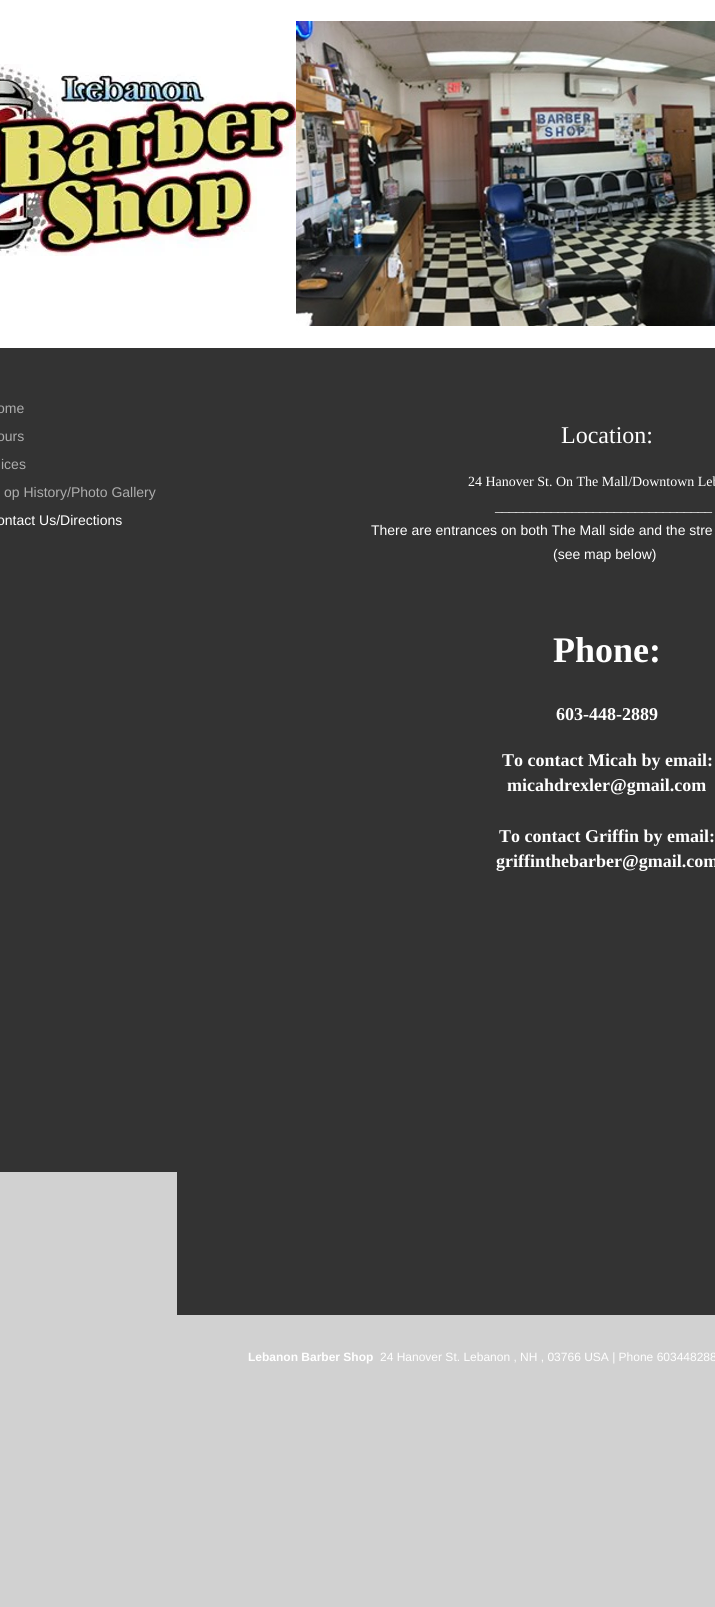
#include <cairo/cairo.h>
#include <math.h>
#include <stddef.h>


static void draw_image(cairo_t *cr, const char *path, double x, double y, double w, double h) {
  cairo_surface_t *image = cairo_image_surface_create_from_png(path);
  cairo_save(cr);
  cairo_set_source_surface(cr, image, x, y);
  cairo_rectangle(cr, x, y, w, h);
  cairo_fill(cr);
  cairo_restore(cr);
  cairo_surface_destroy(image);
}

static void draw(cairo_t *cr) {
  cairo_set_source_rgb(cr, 209 / 255.0, 209 / 255.0, 209 / 255.0);
  cairo_paint(cr);
  cairo_set_source_rgb(cr, 1, 1, 1);
  cairo_rectangle(cr, 0, 0, 715, 348);
  cairo_fill(cr);
  draw_image(cr, "images/1.png", 0, 64, 296, 192);
  draw_image(cr, "images/2.png", 296, 21, 419, 305);
  cairo_set_source_rgb(cr, 51 / 255.0, 51 / 255.0, 51 / 255.0);
  cairo_rectangle(cr, 0, 348, 177, 824);
  cairo_fill(cr);
  cairo_rectangle(cr, 177, 348, 538, 967);
  cairo_fill(cr);
  cairo_select_font_face(cr, "Liberation Sans", CAIRO_FONT_SLANT_NORMAL, CAIRO_FONT_WEIGHT_NORMAL);
  cairo_set_font_size(cr, 14);
  cairo_set_source_rgb(cr, 173 / 255.0, 173 / 255.0, 173 / 255.0);
  cairo_move_to(cr, -3, 413);
  cairo_show_text(cr, "ome");
  cairo_move_to(cr, -3, 441);
  cairo_show_text(cr, "ours");
  cairo_move_to(cr, 1, 469);
  cairo_show_text(cr, "ices");
  cairo_move_to(cr, 4, 497);
  cairo_show_text(cr, "op History/Photo Gallery");
  cairo_set_source_rgb(cr, 1, 1, 1);
  cairo_move_to(cr, -3, 525);
  cairo_show_text(cr, "ontact Us/Directions");
  cairo_select_font_face(cr, "Liberation Serif", CAIRO_FONT_SLANT_NORMAL, CAIRO_FONT_WEIGHT_NORMAL);
  cairo_set_font_size(cr, 24);
  cairo_move_to(cr, 561, 443);
  cairo_show_text(cr, "Location:");
  cairo_set_font_size(cr, 14);
  cairo_move_to(cr, 468, 486);
  cairo_show_text(cr, "24 Hanover St. On The Mall/Downtown Leb");
  cairo_move_to(cr, 495, 511);
  cairo_show_text(cr, "_______________________________");
  cairo_select_font_face(cr, "Liberation Sans", CAIRO_FONT_SLANT_NORMAL, CAIRO_FONT_WEIGHT_NORMAL);
  cairo_move_to(cr, 371, 535);
  cairo_show_text(cr, "There are entrances on both The Mall side and the stre");
  cairo_move_to(cr, 553, 559);
  cairo_show_text(cr, "(see map below)");
  cairo_select_font_face(cr, "Liberation Serif", CAIRO_FONT_SLANT_NORMAL, CAIRO_FONT_WEIGHT_BOLD);
  cairo_set_font_size(cr, 36);
  cairo_move_to(cr, 553, 662);
  cairo_show_text(cr, "Phone:");
  cairo_set_font_size(cr, 18);
  cairo_move_to(cr, 556, 720);
  cairo_show_text(cr, "603-448-2889");
  cairo_move_to(cr, 502, 766);
  cairo_show_text(cr, "To contact Micah by email:");
  cairo_move_to(cr, 507, 791);
  cairo_show_text(cr, "micahdrexler@gmail.com");
  cairo_move_to(cr, 499, 842);
  cairo_show_text(cr, "To contact Griffin by email:");
  cairo_move_to(cr, 496, 867);
  cairo_show_text(cr, "griffinthebarber@gmail.com");
  cairo_select_font_face(cr, "Liberation Sans", CAIRO_FONT_SLANT_NORMAL, CAIRO_FONT_WEIGHT_BOLD);
  cairo_set_font_size(cr, 12);
  cairo_move_to(cr, 248, 1361);
  cairo_show_text(cr, "Lebanon Barber Shop");
  cairo_select_font_face(cr, "Liberation Sans", CAIRO_FONT_SLANT_NORMAL, CAIRO_FONT_WEIGHT_NORMAL);
  cairo_move_to(cr, 380, 1361);
  cairo_show_text(cr, "24 Hanover St. Lebanon , NH , 03766 USA | Phone 603448288");
}

int main(void) {
  cairo_surface_t *surface = cairo_image_surface_create(CAIRO_FORMAT_RGB24, 715, 1607);
  cairo_t *cr = cairo_create(surface);
  cairo_font_options_t *options = cairo_font_options_create();
  cairo_font_options_set_hint_metrics(options, CAIRO_HINT_METRICS_OFF);
  cairo_font_options_set_hint_style(options, CAIRO_HINT_STYLE_NONE);
  cairo_set_font_options(cr, options);
  cairo_set_miter_limit(cr, 4);
  draw(cr);
  cairo_surface_write_to_png(surface, "out.png");
  cairo_font_options_destroy(options);
  cairo_destroy(cr);
  cairo_surface_destroy(surface);
  return 0;
}
